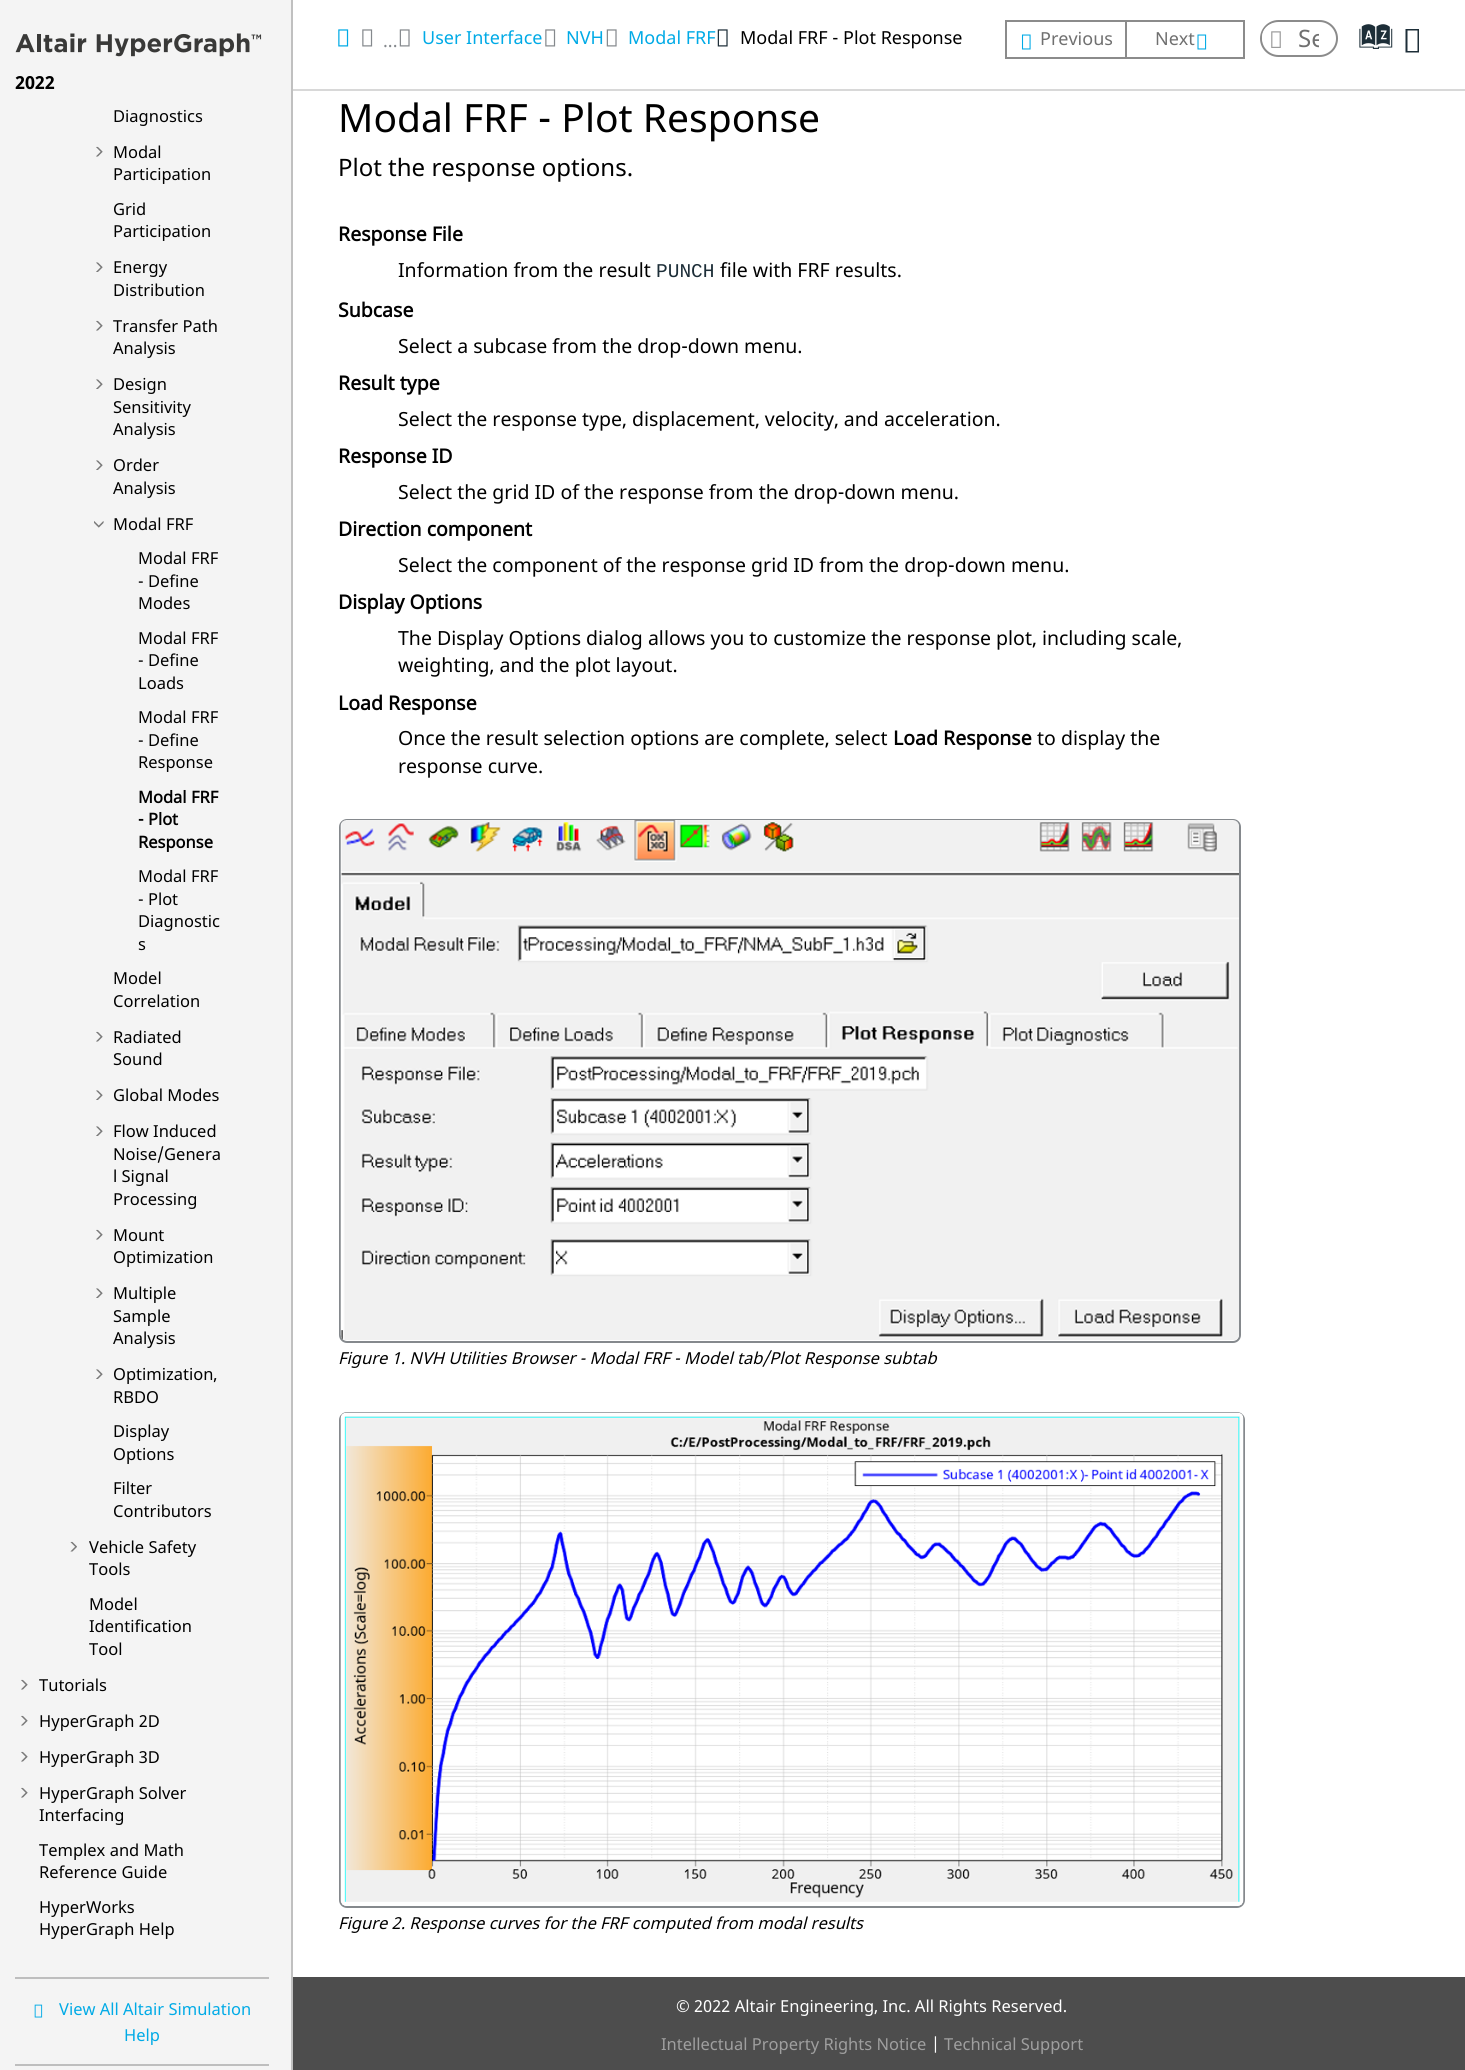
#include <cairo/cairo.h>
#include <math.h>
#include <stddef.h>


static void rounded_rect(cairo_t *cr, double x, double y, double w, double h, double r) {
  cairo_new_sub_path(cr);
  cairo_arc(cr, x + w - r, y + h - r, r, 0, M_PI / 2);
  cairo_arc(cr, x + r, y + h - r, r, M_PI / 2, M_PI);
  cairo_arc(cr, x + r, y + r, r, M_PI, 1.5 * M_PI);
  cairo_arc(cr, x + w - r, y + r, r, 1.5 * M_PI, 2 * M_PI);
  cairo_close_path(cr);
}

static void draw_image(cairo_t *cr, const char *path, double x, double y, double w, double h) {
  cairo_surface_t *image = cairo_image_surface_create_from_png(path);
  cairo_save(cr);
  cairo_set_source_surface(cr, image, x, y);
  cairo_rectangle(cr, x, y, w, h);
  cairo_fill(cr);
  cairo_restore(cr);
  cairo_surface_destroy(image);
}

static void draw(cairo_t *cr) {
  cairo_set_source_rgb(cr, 1, 1, 1);
  cairo_paint(cr);
  cairo_set_source_rgb(cr, 244 / 255.0, 244 / 255.0, 244 / 255.0);
  cairo_rectangle(cr, 0, 0, 291, 2070);
  cairo_fill(cr);
  cairo_set_source_rgb(cr, 192 / 255.0, 192 / 255.0, 192 / 255.0);
  cairo_rectangle(cr, 291, 0, 2, 2070);
  cairo_fill(cr);
  draw_image(cr, "images/1.png", 15, 33, 247, 24);
  draw_image(cr, "images/2.png", 96, 146, 7, 11);
  draw_image(cr, "images/3.png", 96, 262, 7, 10);
  draw_image(cr, "images/2.png", 96, 320, 7, 11);
  draw_image(cr, "images/3.png", 96, 379, 7, 10);
  draw_image(cr, "images/3.png", 96, 460, 7, 10);
  draw_image(cr, "images/4.png", 94, 521, 10, 7);
  draw_image(cr, "images/2.png", 96, 1031, 7, 11);
  draw_image(cr, "images/3.png", 96, 1090, 7, 10);
  draw_image(cr, "images/3.png", 96, 1126, 7, 10);
  draw_image(cr, "images/2.png", 96, 1229, 7, 11);
  draw_image(cr, "images/3.png", 96, 1288, 7, 10);
  draw_image(cr, "images/3.png", 96, 1369, 7, 10);
  draw_image(cr, "images/5.png", 70, 1541, 7, 11);
  draw_image(cr, "images/2.png", 21, 1679, 7, 11);
  draw_image(cr, "images/2.png", 21, 1715, 7, 11);
  draw_image(cr, "images/2.png", 21, 1751, 7, 11);
  draw_image(cr, "images/2.png", 21, 1787, 7, 11);
  cairo_set_source_rgb(cr, 190 / 255.0, 190 / 255.0, 190 / 255.0);
  cairo_rectangle(cr, 15, 1977, 254, 2);
  cairo_fill(cr);
  cairo_rectangle(cr, 15, 2064, 254, 2);
  cairo_fill(cr);
  draw_image(cr, "images/6.png", 34, 2004, 9, 14);
  cairo_set_source_rgb(cr, 216 / 255.0, 216 / 255.0, 216 / 255.0);
  cairo_rectangle(cr, 293, 89, 1172, 2);
  cairo_fill(cr);
  draw_image(cr, "images/7.png", 338, 29, 11, 18);
  draw_image(cr, "images/8.png", 399, 29, 11, 18);
  draw_image(cr, "images/9.png", 545, 29, 11, 18);
  draw_image(cr, "images/8.png", 606, 29, 11, 18);
  draw_image(cr, "images/10.png", 717, 29, 11, 18);
  draw_image(cr, "images/9.png", 362, 29, 11, 18);
  cairo_set_source_rgb(cr, 139 / 255.0, 139 / 255.0, 139 / 255.0);
  cairo_rectangle(cr, 1005, 20, 120, 2);
  cairo_fill(cr);
  cairo_rectangle(cr, 1005, 57, 120, 2);
  cairo_fill(cr);
  cairo_rectangle(cr, 1005, 20, 2, 39);
  cairo_fill(cr);
  draw_image(cr, "images/11.png", 1021, 34, 10, 16);
  cairo_rectangle(cr, 1126, 21, 118, 37);
  cairo_stroke(cr);
  draw_image(cr, "images/12.png", 1197, 34, 10, 16);
  rounded_rect(cr, 1261, 21, 76, 35, 17.5);
  cairo_stroke(cr);
  cairo_set_source_rgb(cr, 1, 1, 1);
  rounded_rect(cr, 1262, 23, 30, 28, 14);
  cairo_fill(cr);
  draw_image(cr, "images/13.png", 1271, 31, 10, 17);
  cairo_set_source_rgb(cr, 29 / 255.0, 46 / 255.0, 56 / 255.0);
  cairo_new_path(cr);
  cairo_move_to(cr, 1405.5, 52.5);
  cairo_line_to(cr, 1405.5, 29);
  cairo_line_to(cr, 1419, 29);
  cairo_line_to(cr, 1419, 52.5);
  cairo_close_path(cr);
  cairo_move_to(cr, 1407.5, 51);
  cairo_line_to(cr, 1417.5, 51);
  cairo_line_to(cr, 1417.5, 30.5);
  cairo_line_to(cr, 1407.5, 30.5);
  cairo_close_path(cr);
  cairo_fill(cr);
  rounded_rect(cr, 340, 820, 900, 522, 7);
  cairo_set_source_rgb(cr, 133 / 255.0, 137 / 255.0, 141 / 255.0);
  cairo_stroke(cr);
  draw_image(cr, "images/14.png", 340, 820, 899, 520);
  rounded_rect(cr, 340, 1413, 904, 494, 7);
  cairo_stroke(cr);
  draw_image(cr, "images/15.png", 340, 1412, 904, 494);
  cairo_set_source_rgb(cr, 77 / 255.0, 77 / 255.0, 77 / 255.0);
  cairo_rectangle(cr, 293, 1977, 1172, 93);
  cairo_fill(cr);
  cairo_select_font_face(cr, "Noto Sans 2", CAIRO_FONT_SLANT_NORMAL, CAIRO_FONT_WEIGHT_BOLD);
  cairo_set_font_size(cr, 18);
  cairo_set_source_rgb(cr, 0, 0, 0);
  cairo_move_to(cr, 15, 89);
  cairo_show_text(cr, "2022");
  cairo_select_font_face(cr, "Noto Sans", CAIRO_FONT_SLANT_NORMAL, CAIRO_FONT_WEIGHT_NORMAL);
  cairo_set_font_size(cr, 16.5);
  cairo_move_to(cr, 113, 122);
  cairo_show_text(cr, "Diagnostics");
  cairo_move_to(cr, 113, 158);
  cairo_show_text(cr, "Modal");
  cairo_move_to(cr, 113, 180);
  cairo_show_text(cr, "Participation");
  cairo_move_to(cr, 113, 215);
  cairo_show_text(cr, "Grid");
  cairo_move_to(cr, 113, 237);
  cairo_show_text(cr, "Participation");
  cairo_move_to(cr, 113, 273);
  cairo_show_text(cr, "Energy");
  cairo_move_to(cr, 113, 296);
  cairo_show_text(cr, "Distribution");
  cairo_move_to(cr, 113, 332);
  cairo_show_text(cr, "Transfer Path");
  cairo_move_to(cr, 113, 354);
  cairo_show_text(cr, "Analysis");
  cairo_move_to(cr, 113, 390);
  cairo_show_text(cr, "Design");
  cairo_move_to(cr, 113, 413);
  cairo_show_text(cr, "Sensitivity");
  cairo_move_to(cr, 113, 435);
  cairo_show_text(cr, "Analysis");
  cairo_move_to(cr, 113, 471);
  cairo_show_text(cr, "Order");
  cairo_move_to(cr, 113, 494);
  cairo_show_text(cr, "Analysis");
  cairo_move_to(cr, 113, 530);
  cairo_show_text(cr, "Modal FRF");
  cairo_move_to(cr, 138, 564);
  cairo_show_text(cr, "Modal FRF");
  cairo_move_to(cr, 138, 587);
  cairo_show_text(cr, "- Define");
  cairo_move_to(cr, 138, 609);
  cairo_show_text(cr, "Modes");
  cairo_move_to(cr, 138, 644);
  cairo_show_text(cr, "Modal FRF");
  cairo_move_to(cr, 138, 666);
  cairo_show_text(cr, "- Define");
  cairo_move_to(cr, 138, 689);
  cairo_show_text(cr, "Loads");
  cairo_move_to(cr, 138, 723);
  cairo_show_text(cr, "Modal FRF");
  cairo_move_to(cr, 138, 746);
  cairo_show_text(cr, "- Define");
  cairo_move_to(cr, 138, 768);
  cairo_show_text(cr, "Response");
  cairo_select_font_face(cr, "Noto Sans", CAIRO_FONT_SLANT_NORMAL, CAIRO_FONT_WEIGHT_BOLD);
  cairo_move_to(cr, 138, 803);
  cairo_show_text(cr, "Modal FRF");
  cairo_move_to(cr, 138, 825);
  cairo_show_text(cr, "- Plot");
  cairo_move_to(cr, 138, 848);
  cairo_show_text(cr, "Response");
  cairo_select_font_face(cr, "Noto Sans", CAIRO_FONT_SLANT_NORMAL, CAIRO_FONT_WEIGHT_NORMAL);
  cairo_move_to(cr, 138, 882);
  cairo_show_text(cr, "Modal FRF");
  cairo_move_to(cr, 138, 905);
  cairo_show_text(cr, "- Plot");
  cairo_move_to(cr, 138, 927);
  cairo_show_text(cr, "Diagnostic");
  cairo_move_to(cr, 138, 950);
  cairo_show_text(cr, "s");
  cairo_move_to(cr, 113, 984);
  cairo_show_text(cr, "Model");
  cairo_move_to(cr, 113, 1007);
  cairo_show_text(cr, "Correlation");
  cairo_move_to(cr, 113, 1043);
  cairo_show_text(cr, "Radiated");
  cairo_move_to(cr, 113, 1065);
  cairo_show_text(cr, "Sound");
  cairo_move_to(cr, 113, 1101);
  cairo_show_text(cr, "Global Modes");
  cairo_move_to(cr, 113, 1137);
  cairo_show_text(cr, "Flow Induced");
  cairo_move_to(cr, 113, 1160);
  cairo_show_text(cr, "Noise/Genera");
  cairo_move_to(cr, 113, 1182);
  cairo_show_text(cr, "l Signal");
  cairo_move_to(cr, 113, 1205);
  cairo_show_text(cr, "Processing");
  cairo_move_to(cr, 113, 1241);
  cairo_show_text(cr, "Mount");
  cairo_move_to(cr, 113, 1263);
  cairo_show_text(cr, "Optimization");
  cairo_move_to(cr, 113, 1299);
  cairo_show_text(cr, "Multiple");
  cairo_move_to(cr, 113, 1322);
  cairo_show_text(cr, "Sample");
  cairo_move_to(cr, 113, 1344);
  cairo_show_text(cr, "Analysis");
  cairo_move_to(cr, 113, 1380);
  cairo_show_text(cr, "Optimization,");
  cairo_move_to(cr, 113, 1403);
  cairo_show_text(cr, "RBDO");
  cairo_move_to(cr, 113, 1437);
  cairo_show_text(cr, "Display");
  cairo_move_to(cr, 113, 1460);
  cairo_show_text(cr, "Options");
  cairo_move_to(cr, 113, 1494);
  cairo_show_text(cr, "Filter");
  cairo_move_to(cr, 113, 1517);
  cairo_show_text(cr, "Contributors");
  cairo_move_to(cr, 89, 1553);
  cairo_show_text(cr, "Vehicle Safety");
  cairo_move_to(cr, 89, 1575);
  cairo_show_text(cr, "Tools");
  cairo_move_to(cr, 89, 1610);
  cairo_show_text(cr, "Model");
  cairo_move_to(cr, 89, 1632);
  cairo_show_text(cr, "Identification");
  cairo_move_to(cr, 89, 1655);
  cairo_show_text(cr, "Tool");
  cairo_move_to(cr, 39, 1691);
  cairo_show_text(cr, "Tutorials");
  cairo_move_to(cr, 39, 1727);
  cairo_show_text(cr, "HyperGraph 2D");
  cairo_move_to(cr, 39, 1763);
  cairo_show_text(cr, "HyperGraph 3D");
  cairo_move_to(cr, 39, 1799);
  cairo_show_text(cr, "HyperGraph Solver");
  cairo_move_to(cr, 39, 1821);
  cairo_show_text(cr, "Interfacing");
  cairo_move_to(cr, 39, 1856);
  cairo_show_text(cr, "Templex and Math");
  cairo_move_to(cr, 39, 1878);
  cairo_show_text(cr, "Reference Guide");
  cairo_move_to(cr, 39, 1913);
  cairo_show_text(cr, "HyperWorks");
  cairo_move_to(cr, 39, 1935);
  cairo_show_text(cr, "HyperGraph Help");
  cairo_set_source_rgb(cr, 0, 170 / 255.0, 230 / 255.0);
  cairo_move_to(cr, 59, 2015);
  cairo_show_text(cr, "View All Altair Simulation");
  cairo_move_to(cr, 124, 2041);
  cairo_show_text(cr, "Help");
  cairo_set_font_size(cr, 18);
  cairo_move_to(cr, 422, 44);
  cairo_show_text(cr, "User Interface");
  cairo_move_to(cr, 566, 44);
  cairo_show_text(cr, "NVH");
  cairo_move_to(cr, 628, 44);
  cairo_show_text(cr, "Modal FRF");
  cairo_set_source_rgb(cr, 0, 0, 0);
  cairo_move_to(cr, 740, 44);
  cairo_show_text(cr, "Modal FRF - Plot Response");
  cairo_set_source_rgb(cr, 133 / 255.0, 137 / 255.0, 141 / 255.0);
  cairo_move_to(cr, 383, 47);
  cairo_show_text(cr, "...");
  cairo_set_source_rgb(cr, 112 / 255.0, 112 / 255.0, 112 / 255.0);
  cairo_move_to(cr, 1040, 45);
  cairo_show_text(cr, "Previous");
  cairo_move_to(cr, 1155, 45);
  cairo_show_text(cr, "Next");
  cairo_save(cr);
  cairo_rectangle(cr, 1298, 21, 21, 33);
  cairo_clip(cr);
  cairo_set_font_size(cr, 24);
  cairo_move_to(cr, 1298, 47);
  cairo_show_text(cr, "Se");
  cairo_restore(cr);
  cairo_select_font_face(cr, "Oxygen", CAIRO_FONT_SLANT_NORMAL, CAIRO_FONT_WEIGHT_NORMAL);
  cairo_set_font_size(cr, 35);
  cairo_set_source_rgb(cr, 29 / 255.0, 46 / 255.0, 56 / 255.0);
  cairo_move_to(cr, 1363, 53);
  cairo_show_text(cr, "a");
  cairo_select_font_face(cr, "Noto Sans", CAIRO_FONT_SLANT_NORMAL, CAIRO_FONT_WEIGHT_NORMAL);
  cairo_set_font_size(cr, 39);
  cairo_set_source_rgb(cr, 0, 0, 0);
  cairo_move_to(cr, 338, 132);
  cairo_show_text(cr, "Modal FRF - Plot Response");
  cairo_set_font_size(cr, 24);
  cairo_move_to(cr, 338, 176);
  cairo_show_text(cr, "Plot the response options.");
  cairo_select_font_face(cr, "Noto Sans", CAIRO_FONT_SLANT_NORMAL, CAIRO_FONT_WEIGHT_BOLD);
  cairo_set_font_size(cr, 19.5);
  cairo_move_to(cr, 338, 241);
  cairo_show_text(cr, "Response File");
  cairo_select_font_face(cr, "Noto Sans", CAIRO_FONT_SLANT_NORMAL, CAIRO_FONT_WEIGHT_NORMAL);
  cairo_move_to(cr, 398, 277);
  cairo_show_text(cr, "Information from the result");
  cairo_select_font_face(cr, "Liberation Mono", CAIRO_FONT_SLANT_NORMAL, CAIRO_FONT_WEIGHT_NORMAL);
  cairo_set_source_rgb(cr, 29 / 255.0, 46 / 255.0, 56 / 255.0);
  cairo_move_to(cr, 656, 277);
  cairo_show_text(cr, "PUNCH");
  cairo_select_font_face(cr, "Noto Sans", CAIRO_FONT_SLANT_NORMAL, CAIRO_FONT_WEIGHT_NORMAL);
  cairo_set_source_rgb(cr, 0, 0, 0);
  cairo_move_to(cr, 720, 277);
  cairo_show_text(cr, "file with FRF results.");
  cairo_select_font_face(cr, "Noto Sans", CAIRO_FONT_SLANT_NORMAL, CAIRO_FONT_WEIGHT_BOLD);
  cairo_move_to(cr, 338, 317);
  cairo_show_text(cr, "Subcase");
  cairo_select_font_face(cr, "Noto Sans", CAIRO_FONT_SLANT_NORMAL, CAIRO_FONT_WEIGHT_NORMAL);
  cairo_move_to(cr, 398, 353);
  cairo_show_text(cr, "Select a subcase from the drop-down menu.");
  cairo_select_font_face(cr, "Noto Sans", CAIRO_FONT_SLANT_NORMAL, CAIRO_FONT_WEIGHT_BOLD);
  cairo_move_to(cr, 338, 390);
  cairo_show_text(cr, "Result type");
  cairo_select_font_face(cr, "Noto Sans", CAIRO_FONT_SLANT_NORMAL, CAIRO_FONT_WEIGHT_NORMAL);
  cairo_move_to(cr, 398, 426);
  cairo_show_text(cr, "Select the response type, displacement, velocity, and acceleration.");
  cairo_select_font_face(cr, "Noto Sans", CAIRO_FONT_SLANT_NORMAL, CAIRO_FONT_WEIGHT_BOLD);
  cairo_move_to(cr, 338, 463);
  cairo_show_text(cr, "Response ID");
  cairo_select_font_face(cr, "Noto Sans", CAIRO_FONT_SLANT_NORMAL, CAIRO_FONT_WEIGHT_NORMAL);
  cairo_move_to(cr, 398, 499);
  cairo_show_text(cr, "Select the grid ID of the response from the drop-down menu.");
  cairo_select_font_face(cr, "Noto Sans", CAIRO_FONT_SLANT_NORMAL, CAIRO_FONT_WEIGHT_BOLD);
  cairo_move_to(cr, 338, 536);
  cairo_show_text(cr, "Direction component");
  cairo_select_font_face(cr, "Noto Sans", CAIRO_FONT_SLANT_NORMAL, CAIRO_FONT_WEIGHT_NORMAL);
  cairo_move_to(cr, 398, 572);
  cairo_show_text(cr, "Select the component of the response grid ID from the drop-down menu.");
  cairo_select_font_face(cr, "Noto Sans", CAIRO_FONT_SLANT_NORMAL, CAIRO_FONT_WEIGHT_BOLD);
  cairo_move_to(cr, 338, 609);
  cairo_show_text(cr, "Display Options");
  cairo_select_font_face(cr, "Noto Sans", CAIRO_FONT_SLANT_NORMAL, CAIRO_FONT_WEIGHT_NORMAL);
  cairo_move_to(cr, 398, 645);
  cairo_show_text(cr, "The Display Options dialog allows you to customize the response plot, including scale,");
  cairo_move_to(cr, 398, 672);
  cairo_show_text(cr, "weighting, and the plot layout.");
  cairo_select_font_face(cr, "Noto Sans", CAIRO_FONT_SLANT_NORMAL, CAIRO_FONT_WEIGHT_BOLD);
  cairo_move_to(cr, 338, 710);
  cairo_show_text(cr, "Load Response");
  cairo_select_font_face(cr, "Noto Sans", CAIRO_FONT_SLANT_NORMAL, CAIRO_FONT_WEIGHT_NORMAL);
  cairo_move_to(cr, 398, 745);
  cairo_show_text(cr, "Once the result selection options are complete, select");
  cairo_select_font_face(cr, "Noto Sans", CAIRO_FONT_SLANT_NORMAL, CAIRO_FONT_WEIGHT_BOLD);
  cairo_move_to(cr, 893, 745);
  cairo_show_text(cr, "Load Response");
  cairo_select_font_face(cr, "Noto Sans", CAIRO_FONT_SLANT_NORMAL, CAIRO_FONT_WEIGHT_NORMAL);
  cairo_move_to(cr, 1037, 745);
  cairo_show_text(cr, "to display the");
  cairo_move_to(cr, 398, 773);
  cairo_show_text(cr, "response curve.");
  cairo_select_font_face(cr, "Noto Sans", CAIRO_FONT_SLANT_ITALIC, CAIRO_FONT_WEIGHT_NORMAL);
  cairo_set_font_size(cr, 16.5);
  cairo_move_to(cr, 338, 1364);
  cairo_show_text(cr, "Figure 1. NVH Utilities Browser - Modal FRF - Model tab/Plot Response subtab");
  cairo_move_to(cr, 338, 1929);
  cairo_show_text(cr, "Figure 2. Response curves for the FRF computed from modal results");
  cairo_select_font_face(cr, "Noto Sans", CAIRO_FONT_SLANT_NORMAL, CAIRO_FONT_WEIGHT_NORMAL);
  cairo_set_source_rgb(cr, 1, 1, 1);
  cairo_move_to(cr, 676, 2012);
  cairo_show_text(cr, "© 2022 Altair Engineering, Inc. All Rights Reserved.");
  cairo_set_source_rgb(cr, 159 / 255.0, 159 / 255.0, 159 / 255.0);
  cairo_move_to(cr, 661, 2050);
  cairo_show_text(cr, "Intellectual Property Rights Notice");
  cairo_set_source_rgb(cr, 1, 1, 1);
  cairo_move_to(cr, 931, 2050);
  cairo_show_text(cr, "|");
  cairo_set_source_rgb(cr, 159 / 255.0, 159 / 255.0, 159 / 255.0);
  cairo_move_to(cr, 944, 2050);
  cairo_show_text(cr, "Technical Support");
}

int main(void) {
  cairo_surface_t *surface = cairo_image_surface_create(CAIRO_FORMAT_RGB24, 1465, 2070);
  cairo_t *cr = cairo_create(surface);
  cairo_font_options_t *options = cairo_font_options_create();
  cairo_font_options_set_hint_metrics(options, CAIRO_HINT_METRICS_OFF);
  cairo_font_options_set_hint_style(options, CAIRO_HINT_STYLE_NONE);
  cairo_set_font_options(cr, options);
  cairo_set_miter_limit(cr, 4);
  draw(cr);
  cairo_surface_write_to_png(surface, "out.png");
  cairo_font_options_destroy(options);
  cairo_destroy(cr);
  cairo_surface_destroy(surface);
  return 0;
}
